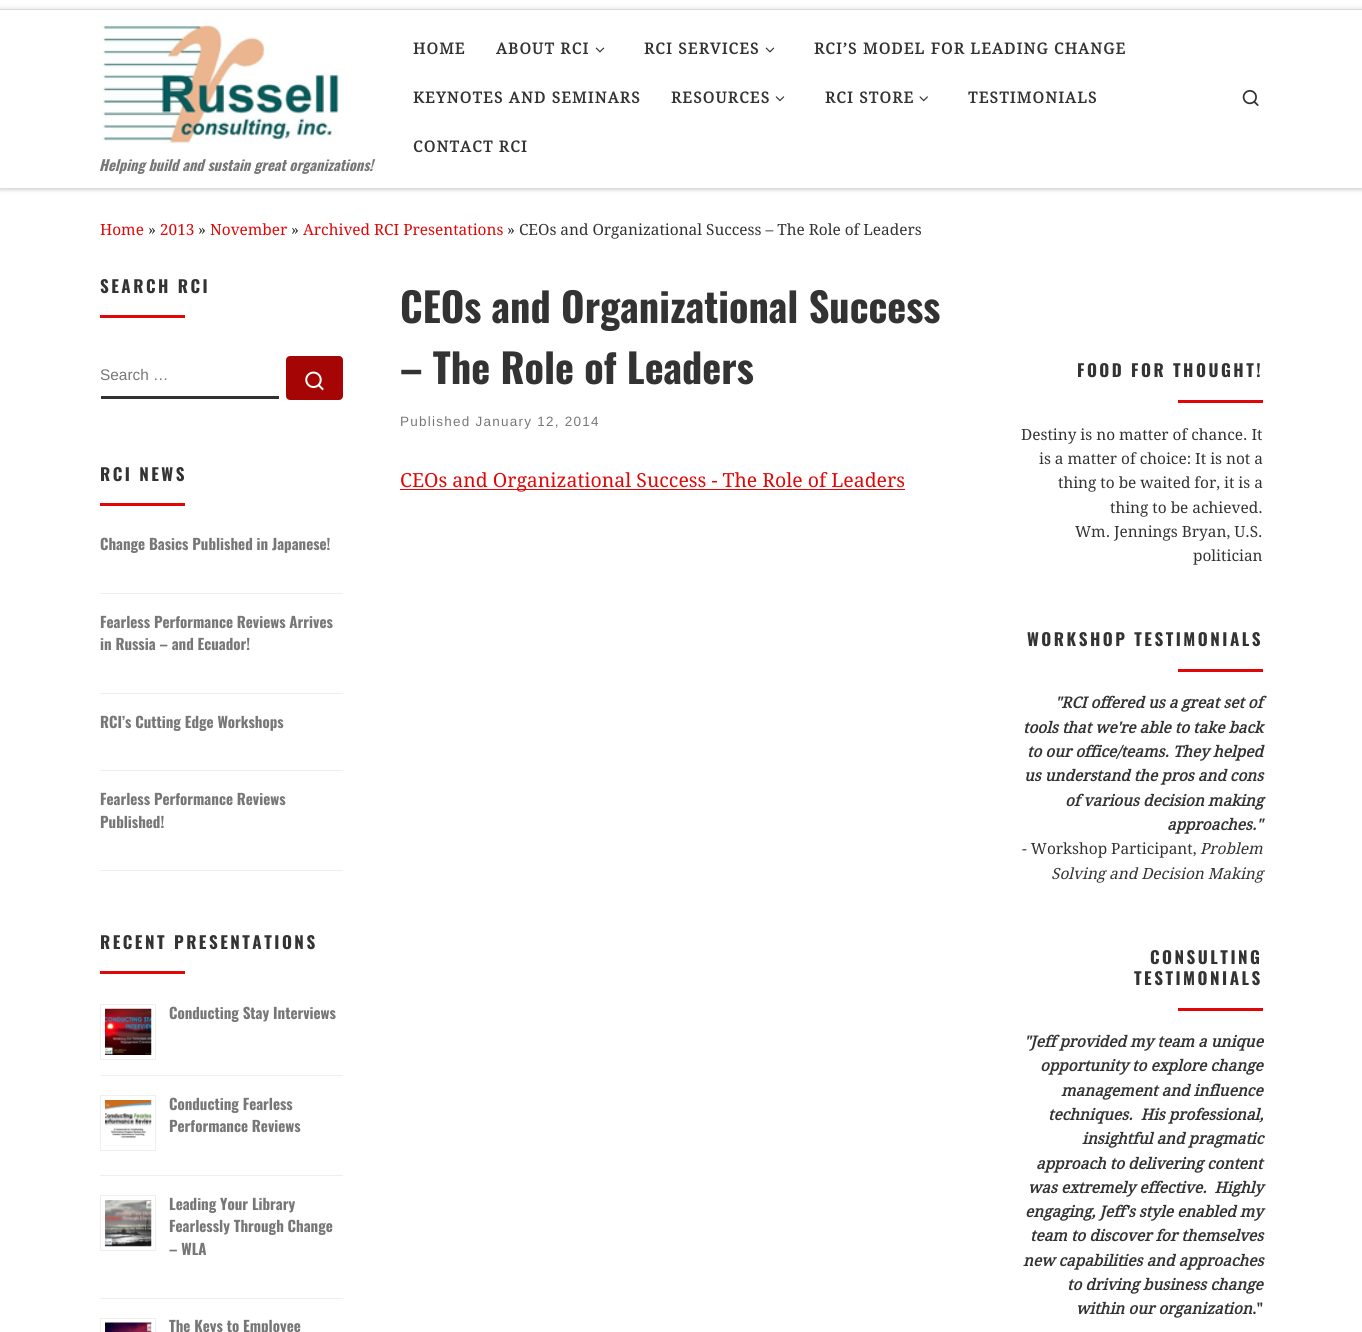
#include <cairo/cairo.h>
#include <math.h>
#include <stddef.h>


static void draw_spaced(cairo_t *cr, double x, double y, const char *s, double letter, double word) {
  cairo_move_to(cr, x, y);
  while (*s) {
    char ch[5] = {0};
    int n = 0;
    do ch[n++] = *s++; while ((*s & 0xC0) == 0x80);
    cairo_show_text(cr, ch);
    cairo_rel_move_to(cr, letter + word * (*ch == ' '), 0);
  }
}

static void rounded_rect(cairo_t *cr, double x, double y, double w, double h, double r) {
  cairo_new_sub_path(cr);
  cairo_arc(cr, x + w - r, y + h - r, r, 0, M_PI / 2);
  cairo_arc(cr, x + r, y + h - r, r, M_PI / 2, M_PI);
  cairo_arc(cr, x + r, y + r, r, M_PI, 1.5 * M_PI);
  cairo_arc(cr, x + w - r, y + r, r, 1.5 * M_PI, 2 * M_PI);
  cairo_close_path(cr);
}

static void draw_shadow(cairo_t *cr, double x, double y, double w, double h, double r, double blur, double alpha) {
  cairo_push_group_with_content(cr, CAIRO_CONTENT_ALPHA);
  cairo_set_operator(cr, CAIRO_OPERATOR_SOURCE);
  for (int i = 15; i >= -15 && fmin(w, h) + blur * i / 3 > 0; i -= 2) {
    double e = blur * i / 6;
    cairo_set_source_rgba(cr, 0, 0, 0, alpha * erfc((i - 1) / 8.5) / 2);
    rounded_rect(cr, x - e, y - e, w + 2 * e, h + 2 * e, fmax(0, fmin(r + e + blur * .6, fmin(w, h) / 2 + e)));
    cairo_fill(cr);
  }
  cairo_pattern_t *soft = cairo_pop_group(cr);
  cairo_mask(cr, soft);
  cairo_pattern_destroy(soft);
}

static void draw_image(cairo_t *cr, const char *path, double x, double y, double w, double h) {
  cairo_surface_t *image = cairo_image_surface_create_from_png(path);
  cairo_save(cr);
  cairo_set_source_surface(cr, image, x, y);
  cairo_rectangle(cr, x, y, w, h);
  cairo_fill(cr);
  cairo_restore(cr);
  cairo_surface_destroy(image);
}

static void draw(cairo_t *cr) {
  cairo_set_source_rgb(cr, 1, 1, 1);
  cairo_paint(cr);
  cairo_set_source_rgb(cr, 102 / 255.0, 102 / 255.0, 102 / 255.0);
  draw_shadow(cr, 0, -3, 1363, 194, 0, 1, 0.08);
  cairo_set_source_rgb(cr, 1, 1, 1);
  cairo_rectangle(cr, 0, 0, 1362, 9);
  cairo_fill(cr);
  cairo_set_source_rgb(cr, 236 / 255.0, 236 / 255.0, 236 / 255.0);
  cairo_rectangle(cr, 0, 9, 1362, 1);
  cairo_fill(cr);
  cairo_set_source_rgb(cr, 239 / 255.0, 239 / 255.0, 239 / 255.0);
  cairo_new_path(cr);
  cairo_move_to(cr, 0, 188);
  cairo_line_to(cr, 0, 189);
  cairo_line_to(cr, 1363, 189);
  cairo_line_to(cr, 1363, 11);
  cairo_line_to(cr, 1362, 11);
  cairo_line_to(cr, 1362, 188);
  cairo_close_path(cr);
  cairo_fill(cr);
  cairo_set_source_rgb(cr, 0, 0, 0);
  draw_shadow(cr, 0, 10, 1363, 178, 0, 3, 0.2);
  cairo_set_source_rgb(cr, 1, 1, 1);
  cairo_rectangle(cr, 0, 10, 1362, 178);
  cairo_fill(cr);
  draw_image(cr, "images/1.png", 595, 47, 10, 6);
  draw_image(cr, "images/1.png", 765, 47, 10, 6);
  draw_image(cr, "images/2.png", 775, 96, 10, 6);
  draw_image(cr, "images/3.png", 919, 96, 9, 6);
  draw_image(cr, "images/4.png", 1242, 90, 17, 17);
  draw_image(cr, "images/5.png", 100, 21, 239, 124);
  cairo_set_source_rgb(cr, 225 / 255.0, 7 / 255.0, 7 / 255.0);
  cairo_rectangle(cr, 100, 315, 85, 3);
  cairo_fill(cr);
  cairo_set_source_rgb(cr, 49 / 255.0, 49 / 255.0, 49 / 255.0);
  cairo_rectangle(cr, 101, 396, 178, 3);
  cairo_fill(cr);
  cairo_set_source_rgb(cr, 166 / 255.0, 5 / 255.0, 5 / 255.0);
  rounded_rect(cr, 287.5, 357.5, 54, 41, 2.5);
  cairo_fill_preserve(cr);
  cairo_set_line_width(cr, 3);
  cairo_stroke(cr);
  draw_image(cr, "images/6.png", 305, 371, 19, 20);
  cairo_set_source_rgb(cr, 225 / 255.0, 7 / 255.0, 7 / 255.0);
  cairo_rectangle(cr, 100, 503, 85, 3);
  cairo_fill(cr);
  cairo_set_source_rgb(cr, 238 / 255.0, 238 / 255.0, 238 / 255.0);
  cairo_rectangle(cr, 100, 593, 243, 1);
  cairo_fill(cr);
  cairo_rectangle(cr, 100, 693, 243, 1);
  cairo_fill(cr);
  cairo_rectangle(cr, 100, 770, 243, 1);
  cairo_fill(cr);
  cairo_rectangle(cr, 100, 870, 243, 1);
  cairo_fill(cr);
  cairo_set_source_rgb(cr, 225 / 255.0, 7 / 255.0, 7 / 255.0);
  cairo_rectangle(cr, 100, 971, 85, 3);
  cairo_fill(cr);
  cairo_set_source_rgb(cr, 238 / 255.0, 238 / 255.0, 238 / 255.0);
  cairo_rectangle(cr, 100, 1075, 243, 1);
  cairo_fill(cr);
  cairo_rectangle(cr, 100.5, 1004.5, 55, 55);
  cairo_set_line_width(cr, 1);
  cairo_stroke(cr);
  draw_image(cr, "images/7.png", 105, 1008, 47, 47);
  cairo_rectangle(cr, 100, 1175, 243, 1);
  cairo_fill(cr);
  cairo_rectangle(cr, 100.5, 1095.5, 55, 55);
  cairo_stroke(cr);
  draw_image(cr, "images/8.png", 105, 1100, 47, 46);
  cairo_rectangle(cr, 100, 1298, 243, 1);
  cairo_fill(cr);
  cairo_rectangle(cr, 100.5, 1195.5, 55, 55);
  cairo_stroke(cr);
  draw_image(cr, "images/9.png", 105, 1200, 47, 47);
  cairo_rectangle(cr, 100.5, 1318.5, 55, 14);
  cairo_stroke(cr);
  draw_image(cr, "images/10.png", 105, 1322, 47, 10);
  cairo_set_source_rgb(cr, 225 / 255.0, 7 / 255.0, 7 / 255.0);
  cairo_rectangle(cr, 400, 489, 505, 1);
  cairo_fill(cr);
  cairo_rectangle(cr, 1178, 400, 85, 3);
  cairo_fill(cr);
  cairo_rectangle(cr, 1178, 669, 85, 3);
  cairo_fill(cr);
  cairo_rectangle(cr, 1178, 1008, 85, 3);
  cairo_fill(cr);
  cairo_select_font_face(cr, "Droid Serif", CAIRO_FONT_SLANT_NORMAL, CAIRO_FONT_WEIGHT_BOLD);
  cairo_set_font_size(cr, 15.4);
  cairo_set_source_rgb(cr, 51 / 255.0, 51 / 255.0, 51 / 255.0);
  draw_spaced(cr, 413, 54, "HOME", 1.25, 0);
  draw_spaced(cr, 496, 54, "ABOUT RCI", 1.25, 0);
  draw_spaced(cr, 644, 54, "RCI SERVICES", 1.25, 0);
  draw_spaced(cr, 814, 54, "RCI’S MODEL FOR LEADING CHANGE", 1.25, 0);
  draw_spaced(cr, 413, 103, "KEYNOTES AND SEMINARS", 1.25, 0);
  draw_spaced(cr, 671, 103, "RESOURCES", 1.25, 0);
  draw_spaced(cr, 825, 103, "RCI STORE", 1.25, 0);
  draw_spaced(cr, 968, 103, "TESTIMONIALS", 1.25, 0);
  draw_spaced(cr, 413, 152, "CONTACT RCI", 1.25, 0);
  cairo_select_font_face(cr, "Oswald", CAIRO_FONT_SLANT_ITALIC, CAIRO_FONT_WEIGHT_BOLD);
  cairo_set_font_size(cr, 14.6);
  cairo_set_source_rgb(cr, 119 / 255.0, 119 / 255.0, 119 / 255.0);
  cairo_move_to(cr, 99, 171);
  cairo_show_text(cr, "Helping build and sustain great organizations!");
  cairo_select_font_face(cr, "Droid Serif", CAIRO_FONT_SLANT_NORMAL, CAIRO_FONT_WEIGHT_NORMAL);
  cairo_set_font_size(cr, 15.4);
  cairo_set_source_rgb(cr, 225 / 255.0, 7 / 255.0, 7 / 255.0);
  cairo_move_to(cr, 100, 235);
  cairo_show_text(cr, "Home");
  cairo_set_source_rgb(cr, 51 / 255.0, 51 / 255.0, 51 / 255.0);
  cairo_move_to(cr, 148, 235);
  cairo_show_text(cr, "»");
  cairo_set_source_rgb(cr, 225 / 255.0, 7 / 255.0, 7 / 255.0);
  cairo_move_to(cr, 160, 235);
  cairo_show_text(cr, "2013");
  cairo_set_source_rgb(cr, 51 / 255.0, 51 / 255.0, 51 / 255.0);
  cairo_move_to(cr, 198, 235);
  cairo_show_text(cr, "»");
  cairo_set_source_rgb(cr, 225 / 255.0, 7 / 255.0, 7 / 255.0);
  cairo_move_to(cr, 210, 235);
  cairo_show_text(cr, "November");
  cairo_set_source_rgb(cr, 51 / 255.0, 51 / 255.0, 51 / 255.0);
  cairo_move_to(cr, 291, 235);
  cairo_show_text(cr, "»");
  cairo_set_source_rgb(cr, 225 / 255.0, 7 / 255.0, 7 / 255.0);
  cairo_move_to(cr, 303, 235);
  cairo_show_text(cr, "Archived RCI Presentations");
  cairo_set_source_rgb(cr, 51 / 255.0, 51 / 255.0, 51 / 255.0);
  cairo_move_to(cr, 507, 235);
  cairo_show_text(cr, "» CEOs and Organizational Success – The Role of Leaders");
  cairo_select_font_face(cr, "Oswald", CAIRO_FONT_SLANT_NORMAL, CAIRO_FONT_WEIGHT_BOLD);
  cairo_set_font_size(cr, 17);
  draw_spaced(cr, 100, 293, "SEARCH RCI", 2.5, 0);
  cairo_select_font_face(cr, "Liberation Sans", CAIRO_FONT_SLANT_NORMAL, CAIRO_FONT_WEIGHT_NORMAL);
  cairo_set_font_size(cr, 15.4);
  cairo_set_source_rgb(cr, 119 / 255.0, 119 / 255.0, 119 / 255.0);
  cairo_move_to(cr, 100, 380);
  cairo_show_text(cr, "Search …");
  cairo_select_font_face(cr, "Oswald", CAIRO_FONT_SLANT_NORMAL, CAIRO_FONT_WEIGHT_BOLD);
  cairo_set_font_size(cr, 17);
  cairo_set_source_rgb(cr, 51 / 255.0, 51 / 255.0, 51 / 255.0);
  draw_spaced(cr, 100, 481, "RCI NEWS", 2.5, 0);
  cairo_set_font_size(cr, 15);
  cairo_set_source_rgb(cr, 119 / 255.0, 119 / 255.0, 119 / 255.0);
  cairo_move_to(cr, 100, 550);
  cairo_show_text(cr, "Change Basics Published in Japanese!");
  cairo_move_to(cr, 100, 628);
  cairo_show_text(cr, "Fearless Performance Reviews Arrives");
  cairo_move_to(cr, 100, 650);
  cairo_show_text(cr, "in Russia – and Ecuador!");
  cairo_move_to(cr, 100, 728);
  cairo_show_text(cr, "RCI’s Cutting Edge Workshops");
  cairo_move_to(cr, 100, 805);
  cairo_show_text(cr, "Fearless Performance Reviews");
  cairo_move_to(cr, 100, 828);
  cairo_show_text(cr, "Published!");
  cairo_set_font_size(cr, 17);
  cairo_set_source_rgb(cr, 51 / 255.0, 51 / 255.0, 51 / 255.0);
  draw_spaced(cr, 100, 949, "RECENT PRESENTATIONS", 2.5, 0);
  cairo_set_font_size(cr, 15);
  cairo_set_source_rgb(cr, 119 / 255.0, 119 / 255.0, 119 / 255.0);
  cairo_move_to(cr, 169, 1019);
  cairo_show_text(cr, "Conducting Stay Interviews");
  cairo_move_to(cr, 169, 1110);
  cairo_show_text(cr, "Conducting Fearless");
  cairo_move_to(cr, 169, 1132);
  cairo_show_text(cr, "Performance Reviews");
  cairo_move_to(cr, 169, 1210);
  cairo_show_text(cr, "Leading Your Library");
  cairo_move_to(cr, 169, 1232);
  cairo_show_text(cr, "Fearlessly Through Change");
  cairo_move_to(cr, 169, 1255);
  cairo_show_text(cr, "– WLA");
  cairo_move_to(cr, 169, 1332);
  cairo_show_text(cr, "The Keys to Employee");
  cairo_set_font_size(cr, 40.25);
  cairo_set_source_rgb(cr, 51 / 255.0, 51 / 255.0, 51 / 255.0);
  cairo_move_to(cr, 400, 323);
  cairo_show_text(cr, "CEOs and Organizational Success");
  cairo_move_to(cr, 400, 384);
  cairo_show_text(cr, "– The Role of Leaders");
  cairo_select_font_face(cr, "Liberation Sans", CAIRO_FONT_SLANT_NORMAL, CAIRO_FONT_WEIGHT_NORMAL);
  cairo_set_font_size(cr, 13.5);
  cairo_set_source_rgb(cr, 119 / 255.0, 119 / 255.0, 119 / 255.0);
  draw_spaced(cr, 400, 426, "Published January 12, 2014", 1.25, 0);
  cairo_select_font_face(cr, "Droid Serif", CAIRO_FONT_SLANT_NORMAL, CAIRO_FONT_WEIGHT_NORMAL);
  cairo_set_font_size(cr, 19.45);
  cairo_set_source_rgb(cr, 225 / 255.0, 7 / 255.0, 7 / 255.0);
  cairo_move_to(cr, 400, 487);
  cairo_show_text(cr, "CEOs and Organizational Success - The Role of Leaders");
  cairo_select_font_face(cr, "Oswald", CAIRO_FONT_SLANT_NORMAL, CAIRO_FONT_WEIGHT_BOLD);
  cairo_set_font_size(cr, 17);
  cairo_set_source_rgb(cr, 51 / 255.0, 51 / 255.0, 51 / 255.0);
  draw_spaced(cr, 1077, 377, "FOOD FOR THOUGHT!", 2.5, 0);
  cairo_select_font_face(cr, "Droid Serif", CAIRO_FONT_SLANT_NORMAL, CAIRO_FONT_WEIGHT_NORMAL);
  cairo_set_font_size(cr, 15.4);
  cairo_move_to(cr, 1021, 440);
  cairo_show_text(cr, "Destiny is no matter of chance. It");
  cairo_move_to(cr, 1039, 464);
  cairo_show_text(cr, "is a matter of choice: It is not a");
  cairo_move_to(cr, 1058, 488);
  cairo_show_text(cr, "thing to be waited for, it is a");
  cairo_move_to(cr, 1110, 513);
  cairo_show_text(cr, "thing to be achieved.");
  cairo_move_to(cr, 1075, 537);
  cairo_show_text(cr, "Wm. Jennings Bryan, U.S.");
  cairo_move_to(cr, 1193, 561);
  cairo_show_text(cr, "politician");
  cairo_select_font_face(cr, "Oswald", CAIRO_FONT_SLANT_NORMAL, CAIRO_FONT_WEIGHT_BOLD);
  cairo_set_font_size(cr, 17);
  draw_spaced(cr, 1027, 646, "WORKSHOP TESTIMONIALS", 2.5, 0);
  cairo_select_font_face(cr, "Droid Serif", CAIRO_FONT_SLANT_ITALIC, CAIRO_FONT_WEIGHT_BOLD);
  cairo_set_font_size(cr, 15.4);
  cairo_move_to(cr, 1055, 708);
  cairo_show_text(cr, "\"RCI offered us a great set of");
  cairo_move_to(cr, 1023, 733);
  cairo_show_text(cr, "tools that we're able to take back");
  cairo_move_to(cr, 1027, 757);
  cairo_show_text(cr, "to our office/teams. They helped");
  cairo_move_to(cr, 1024, 781);
  cairo_show_text(cr, "us understand the pros and cons");
  cairo_move_to(cr, 1065, 806);
  cairo_show_text(cr, "of various decision making");
  cairo_move_to(cr, 1167, 830);
  cairo_show_text(cr, "approaches.\"");
  cairo_select_font_face(cr, "Droid Serif", CAIRO_FONT_SLANT_NORMAL, CAIRO_FONT_WEIGHT_NORMAL);
  cairo_move_to(cr, 1022, 854);
  cairo_show_text(cr, "- Workshop Participant,");
  cairo_select_font_face(cr, "Droid Serif", CAIRO_FONT_SLANT_ITALIC, CAIRO_FONT_WEIGHT_NORMAL);
  cairo_move_to(cr, 1200, 854);
  cairo_show_text(cr, "Problem");
  cairo_move_to(cr, 1051, 879);
  cairo_show_text(cr, "Solving and Decision Making");
  cairo_select_font_face(cr, "Oswald", CAIRO_FONT_SLANT_NORMAL, CAIRO_FONT_WEIGHT_BOLD);
  cairo_set_font_size(cr, 17);
  draw_spaced(cr, 1150, 964, "CONSULTING", 2.5, 0);
  draw_spaced(cr, 1134, 985, "TESTIMONIALS", 2.5, 0);
  cairo_select_font_face(cr, "Droid Serif", CAIRO_FONT_SLANT_ITALIC, CAIRO_FONT_WEIGHT_BOLD);
  cairo_set_font_size(cr, 15.4);
  cairo_move_to(cr, 1024, 1047);
  cairo_show_text(cr, "\"Jeff provided my team a unique");
  cairo_move_to(cr, 1040, 1071);
  cairo_show_text(cr, "opportunity to explore change");
  cairo_move_to(cr, 1061, 1096);
  cairo_show_text(cr, "management and influence");
  cairo_move_to(cr, 1048, 1120);
  cairo_show_text(cr, "techniques.  His professional,");
  cairo_move_to(cr, 1082, 1144);
  cairo_show_text(cr, "insightful and pragmatic");
  cairo_move_to(cr, 1036, 1169);
  cairo_show_text(cr, "approach to delivering content");
  cairo_move_to(cr, 1028, 1193);
  cairo_show_text(cr, "was extremely effective.  Highly");
  cairo_move_to(cr, 1025, 1217);
  cairo_show_text(cr, "engaging, Jeff's style enabled my");
  cairo_move_to(cr, 1030, 1241);
  cairo_show_text(cr, "team to discover for themselves");
  cairo_move_to(cr, 1023, 1266);
  cairo_show_text(cr, "new capabilities and approaches");
  cairo_move_to(cr, 1067, 1290);
  cairo_show_text(cr, "to driving business change");
  cairo_move_to(cr, 1076, 1314);
  cairo_show_text(cr, "within our organization");
  cairo_select_font_face(cr, "Droid Serif", CAIRO_FONT_SLANT_NORMAL, CAIRO_FONT_WEIGHT_BOLD);
  cairo_move_to(cr, 1252, 1314);
  cairo_show_text(cr, ".\"");
}

int main(void) {
  cairo_surface_t *surface = cairo_image_surface_create(CAIRO_FORMAT_RGB24, 1362, 1332);
  cairo_t *cr = cairo_create(surface);
  cairo_font_options_t *options = cairo_font_options_create();
  cairo_font_options_set_hint_metrics(options, CAIRO_HINT_METRICS_OFF);
  cairo_font_options_set_hint_style(options, CAIRO_HINT_STYLE_NONE);
  cairo_set_font_options(cr, options);
  cairo_set_miter_limit(cr, 4);
  draw(cr);
  cairo_surface_write_to_png(surface, "out.png");
  cairo_font_options_destroy(options);
  cairo_destroy(cr);
  cairo_surface_destroy(surface);
  return 0;
}
